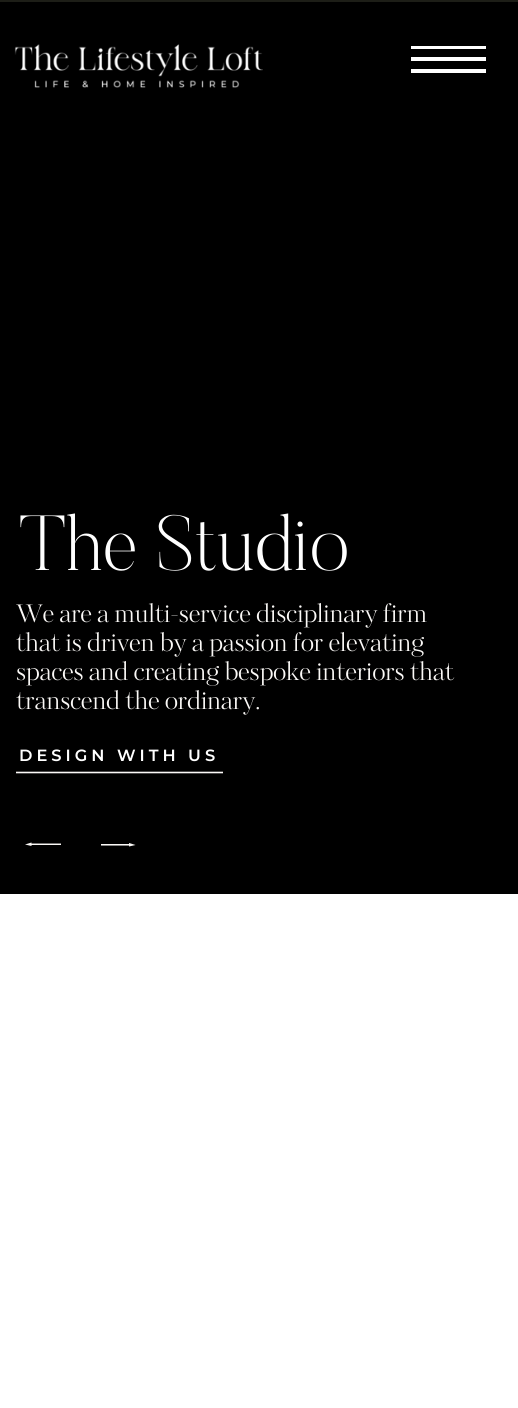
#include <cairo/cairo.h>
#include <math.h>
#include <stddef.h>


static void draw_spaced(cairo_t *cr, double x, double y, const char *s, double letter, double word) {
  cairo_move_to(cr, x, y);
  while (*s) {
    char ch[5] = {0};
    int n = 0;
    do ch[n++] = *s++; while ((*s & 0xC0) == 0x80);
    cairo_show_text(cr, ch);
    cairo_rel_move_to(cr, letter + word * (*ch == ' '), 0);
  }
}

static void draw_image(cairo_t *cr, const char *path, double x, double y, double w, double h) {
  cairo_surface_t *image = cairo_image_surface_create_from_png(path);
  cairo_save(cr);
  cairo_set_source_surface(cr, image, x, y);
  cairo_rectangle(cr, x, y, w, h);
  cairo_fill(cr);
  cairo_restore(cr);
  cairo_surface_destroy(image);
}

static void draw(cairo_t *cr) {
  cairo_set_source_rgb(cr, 1, 1, 1);
  cairo_paint(cr);
  cairo_set_source_rgb(cr, 29 / 255.0, 30 / 255.0, 23 / 255.0);
  cairo_rectangle(cr, 0, 0, 518, 2);
  cairo_fill(cr);
  cairo_set_source_rgb(cr, 0, 0, 0);
  cairo_rectangle(cr, 0, 2, 518, 892);
  cairo_fill(cr);
  draw_image(cr, "images/1.png", 14, 44, 249, 44);
  cairo_set_source_rgb(cr, 1, 1, 1);
  cairo_new_path(cr);
  cairo_move_to(cr, 411, 69);
  cairo_line_to(cr, 486, 69);
  cairo_line_to(cr, 486, 73);
  cairo_line_to(cr, 411, 73);
  cairo_close_path(cr);
  cairo_move_to(cr, 411, 57);
  cairo_line_to(cr, 486, 57);
  cairo_line_to(cr, 486, 61);
  cairo_line_to(cr, 411, 61);
  cairo_close_path(cr);
  cairo_move_to(cr, 411, 46);
  cairo_line_to(cr, 486, 46);
  cairo_line_to(cr, 486, 49);
  cairo_line_to(cr, 411, 49);
  cairo_close_path(cr);
  cairo_fill(cr);
  cairo_new_path(cr);
  cairo_move_to(cr, 16, 772.5);
  cairo_line_to(cr, 223, 772.5);
  cairo_set_source_rgb(cr, 251 / 255.0, 249 / 255.0, 247 / 255.0);
  cairo_set_line_width(cr, 1.6);
  cairo_stroke(cr);
  cairo_new_path(cr);
  cairo_move_to(cr, 25, 844.5);
  cairo_line_to(cr, 31.5, 846);
  cairo_line_to(cr, 31.5, 845);
  cairo_line_to(cr, 61, 845);
  cairo_line_to(cr, 61, 843.5);
  cairo_line_to(cr, 31.5, 843.5);
  cairo_line_to(cr, 31.5, 842.5);
  cairo_close_path(cr);
  cairo_fill(cr);
  cairo_new_path(cr);
  cairo_move_to(cr, 135.5, 845);
  cairo_line_to(cr, 129, 843);
  cairo_line_to(cr, 129, 844);
  cairo_line_to(cr, 101, 844);
  cairo_line_to(cr, 101, 845.5);
  cairo_line_to(cr, 129, 845.5);
  cairo_line_to(cr, 129, 846.5);
  cairo_close_path(cr);
  cairo_fill(cr);
  cairo_select_font_face(cr, "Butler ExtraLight", CAIRO_FONT_SLANT_NORMAL, CAIRO_FONT_WEIGHT_NORMAL);
  cairo_set_font_size(cr, 77.5);
  cairo_set_source_rgb(cr, 1, 1, 1);
  cairo_move_to(cr, 19, 570);
  cairo_show_text(cr, "The Studio");
  cairo_select_font_face(cr, "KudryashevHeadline", CAIRO_FONT_SLANT_NORMAL, CAIRO_FONT_WEIGHT_NORMAL);
  cairo_set_font_size(cr, 24.25);
  cairo_set_source_rgb(cr, 251 / 255.0, 249 / 255.0, 247 / 255.0);
  cairo_move_to(cr, 16, 622);
  cairo_show_text(cr, "We are a multi-service disciplinary firm");
  cairo_move_to(cr, 16, 651);
  cairo_show_text(cr, "that is driven by a passion for elevating");
  cairo_move_to(cr, 16, 680);
  cairo_show_text(cr, "spaces and creating bespoke interiors that");
  cairo_move_to(cr, 16, 709);
  cairo_show_text(cr, "transcend the ordinary.");
  cairo_select_font_face(cr, "Montserrat SemiBold", CAIRO_FONT_SLANT_NORMAL, CAIRO_FONT_WEIGHT_NORMAL);
  cairo_set_font_size(cr, 16.25);
  cairo_set_source_rgb(cr, 1, 1, 1);
  draw_spaced(cr, 19, 761, "DESIGN WITH US", 4, 0);
}

int main(void) {
  cairo_surface_t *surface = cairo_image_surface_create(CAIRO_FORMAT_RGB24, 518, 1408);
  cairo_t *cr = cairo_create(surface);
  cairo_font_options_t *options = cairo_font_options_create();
  cairo_font_options_set_hint_metrics(options, CAIRO_HINT_METRICS_OFF);
  cairo_font_options_set_hint_style(options, CAIRO_HINT_STYLE_NONE);
  cairo_set_font_options(cr, options);
  cairo_set_miter_limit(cr, 4);
  draw(cr);
  cairo_surface_write_to_png(surface, "out.png");
  cairo_font_options_destroy(options);
  cairo_destroy(cr);
  cairo_surface_destroy(surface);
  return 0;
}
